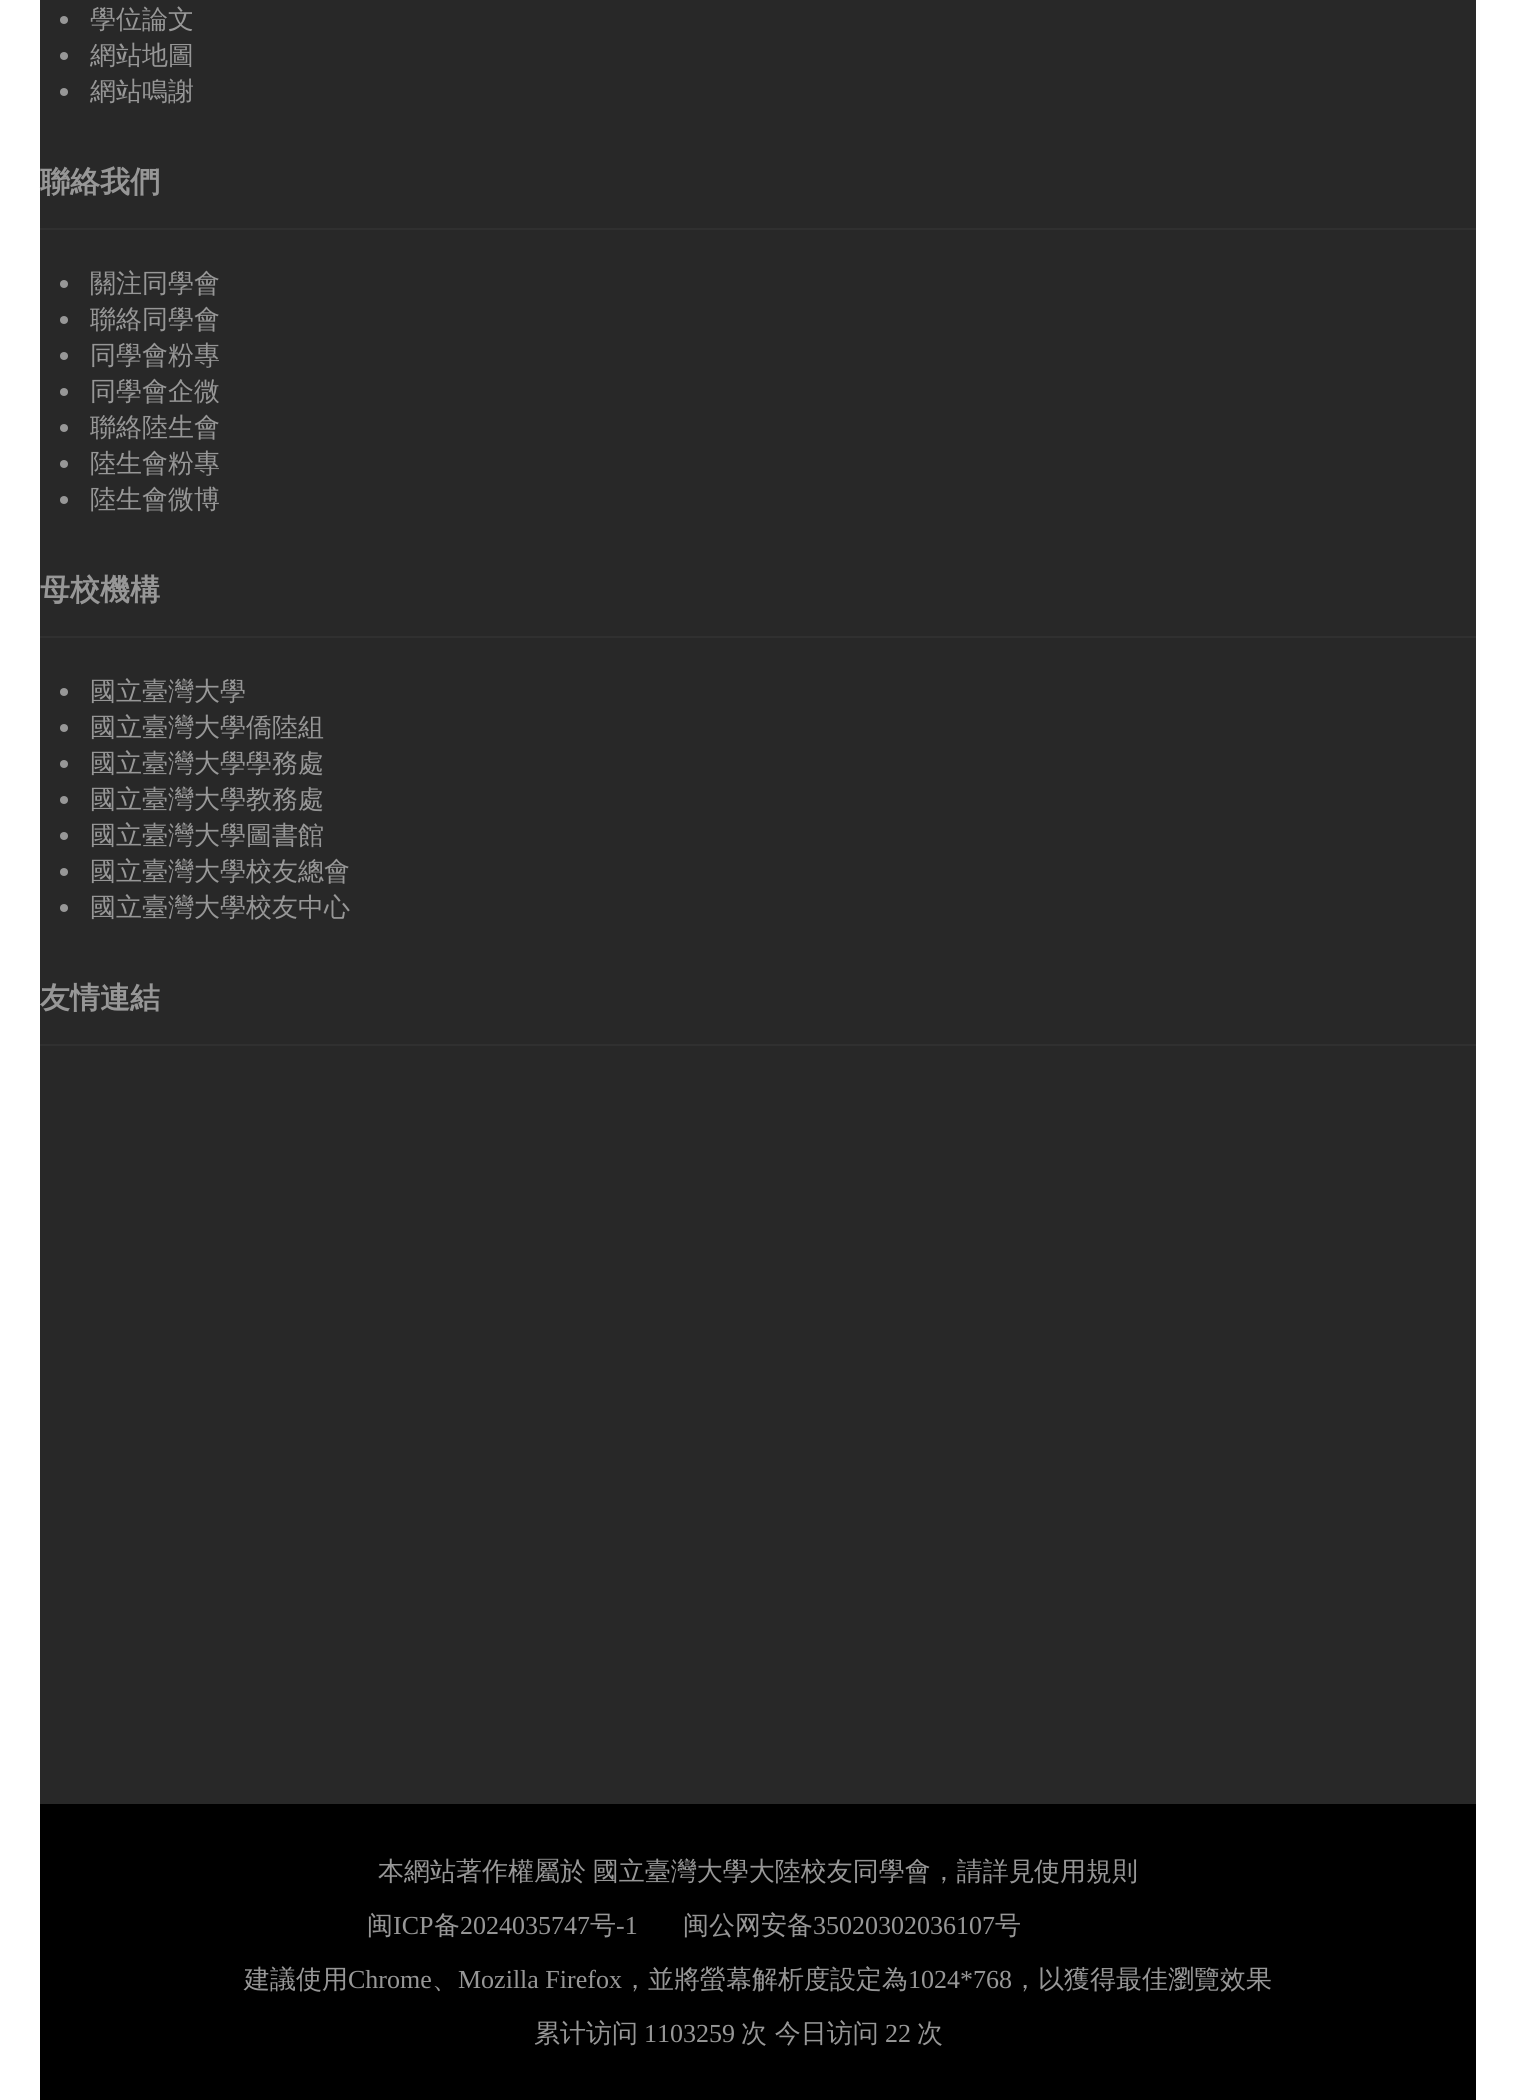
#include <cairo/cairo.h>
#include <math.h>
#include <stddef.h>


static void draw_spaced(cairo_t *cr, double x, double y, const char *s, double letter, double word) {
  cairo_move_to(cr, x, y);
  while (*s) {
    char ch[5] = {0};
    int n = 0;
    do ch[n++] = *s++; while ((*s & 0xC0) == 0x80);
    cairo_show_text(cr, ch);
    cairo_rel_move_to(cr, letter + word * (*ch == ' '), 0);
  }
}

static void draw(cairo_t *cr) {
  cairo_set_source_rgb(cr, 1, 1, 1);
  cairo_paint(cr);
  cairo_set_source_rgb(cr, 40 / 255.0, 40 / 255.0, 40 / 255.0);
  cairo_rectangle(cr, 40, 0, 1436, 1804);
  cairo_fill(cr);
  cairo_set_source_rgb(cr, 151 / 255.0, 151 / 255.0, 151 / 255.0);
  cairo_arc(cr, 64, 20, 4, 0, 2 * M_PI);
  cairo_fill(cr);
  cairo_arc(cr, 64, 56, 4, 0, 2 * M_PI);
  cairo_fill(cr);
  cairo_arc(cr, 64, 92, 4, 0, 2 * M_PI);
  cairo_fill(cr);
  cairo_set_source_rgb(cr, 48 / 255.0, 48 / 255.0, 48 / 255.0);
  cairo_rectangle(cr, 40, 228, 1436, 2);
  cairo_fill(cr);
  cairo_set_source_rgb(cr, 151 / 255.0, 151 / 255.0, 151 / 255.0);
  cairo_arc(cr, 64, 284, 4, 0, 2 * M_PI);
  cairo_fill(cr);
  cairo_arc(cr, 64, 320, 4, 0, 2 * M_PI);
  cairo_fill(cr);
  cairo_arc(cr, 64, 356, 4, 0, 2 * M_PI);
  cairo_fill(cr);
  cairo_arc(cr, 64, 392, 4, 0, 2 * M_PI);
  cairo_fill(cr);
  cairo_arc(cr, 64, 428, 4, 0, 2 * M_PI);
  cairo_fill(cr);
  cairo_arc(cr, 64, 464, 4, 0, 2 * M_PI);
  cairo_fill(cr);
  cairo_arc(cr, 64, 500, 4, 0, 2 * M_PI);
  cairo_fill(cr);
  cairo_set_source_rgb(cr, 48 / 255.0, 48 / 255.0, 48 / 255.0);
  cairo_rectangle(cr, 40, 636, 1436, 2);
  cairo_fill(cr);
  cairo_set_source_rgb(cr, 151 / 255.0, 151 / 255.0, 151 / 255.0);
  cairo_arc(cr, 64, 692, 4, 0, 2 * M_PI);
  cairo_fill(cr);
  cairo_arc(cr, 64, 728, 4, 0, 2 * M_PI);
  cairo_fill(cr);
  cairo_arc(cr, 64, 764, 4, 0, 2 * M_PI);
  cairo_fill(cr);
  cairo_arc(cr, 64, 800, 4, 0, 2 * M_PI);
  cairo_fill(cr);
  cairo_arc(cr, 64, 836, 4, 0, 2 * M_PI);
  cairo_fill(cr);
  cairo_arc(cr, 64, 872, 4, 0, 2 * M_PI);
  cairo_fill(cr);
  cairo_arc(cr, 64, 908, 4, 0, 2 * M_PI);
  cairo_fill(cr);
  cairo_set_source_rgb(cr, 48 / 255.0, 48 / 255.0, 48 / 255.0);
  cairo_rectangle(cr, 40, 1044, 1436, 2);
  cairo_fill(cr);
  cairo_set_source_rgb(cr, 0, 0, 0);
  cairo_rectangle(cr, 40, 1804, 1436, 296);
  cairo_fill(cr);
  cairo_select_font_face(cr, "WenQuanYi Zen Hei Medium", CAIRO_FONT_SLANT_NORMAL, CAIRO_FONT_WEIGHT_NORMAL);
  cairo_set_font_size(cr, 26);
  cairo_set_source_rgb(cr, 151 / 255.0, 151 / 255.0, 151 / 255.0);
  cairo_move_to(cr, 90, 28);
  cairo_show_text(cr, "學位論文");
  cairo_move_to(cr, 90, 64);
  cairo_show_text(cr, "網站地圖");
  cairo_move_to(cr, 90, 100);
  cairo_show_text(cr, "網站鳴謝");
  cairo_select_font_face(cr, "WenQuanYi Zen Hei", CAIRO_FONT_SLANT_NORMAL, CAIRO_FONT_WEIGHT_BOLD);
  cairo_set_font_size(cr, 30);
  cairo_move_to(cr, 40, 192);
  cairo_show_text(cr, "聯絡我們");
  cairo_select_font_face(cr, "WenQuanYi Zen Hei Medium", CAIRO_FONT_SLANT_NORMAL, CAIRO_FONT_WEIGHT_NORMAL);
  cairo_set_font_size(cr, 26);
  cairo_move_to(cr, 90, 292);
  cairo_show_text(cr, "關注同學會");
  cairo_move_to(cr, 90, 328);
  cairo_show_text(cr, "聯絡同學會");
  cairo_move_to(cr, 90, 364);
  cairo_show_text(cr, "同學會粉專");
  cairo_move_to(cr, 90, 400);
  cairo_show_text(cr, "同學會企微");
  cairo_move_to(cr, 90, 436);
  cairo_show_text(cr, "聯絡陸生會");
  cairo_move_to(cr, 90, 472);
  cairo_show_text(cr, "陸生會粉專");
  cairo_move_to(cr, 90, 508);
  cairo_show_text(cr, "陸生會微博");
  cairo_select_font_face(cr, "WenQuanYi Zen Hei", CAIRO_FONT_SLANT_NORMAL, CAIRO_FONT_WEIGHT_BOLD);
  cairo_set_font_size(cr, 30);
  cairo_move_to(cr, 40, 600);
  cairo_show_text(cr, "母校機構");
  cairo_select_font_face(cr, "WenQuanYi Zen Hei Medium", CAIRO_FONT_SLANT_NORMAL, CAIRO_FONT_WEIGHT_NORMAL);
  cairo_set_font_size(cr, 26);
  cairo_move_to(cr, 90, 700);
  cairo_show_text(cr, "國立臺灣大學");
  cairo_move_to(cr, 90, 736);
  cairo_show_text(cr, "國立臺灣大學僑陸組");
  cairo_move_to(cr, 90, 772);
  cairo_show_text(cr, "國立臺灣大學學務處");
  cairo_move_to(cr, 90, 808);
  cairo_show_text(cr, "國立臺灣大學教務處");
  cairo_move_to(cr, 90, 844);
  cairo_show_text(cr, "國立臺灣大學圖書館");
  cairo_move_to(cr, 90, 880);
  cairo_show_text(cr, "國立臺灣大學校友總會");
  cairo_move_to(cr, 90, 916);
  cairo_show_text(cr, "國立臺灣大學校友中心");
  cairo_select_font_face(cr, "WenQuanYi Zen Hei", CAIRO_FONT_SLANT_NORMAL, CAIRO_FONT_WEIGHT_BOLD);
  cairo_set_font_size(cr, 30);
  cairo_move_to(cr, 40, 1008);
  cairo_show_text(cr, "友情連結");
  cairo_select_font_face(cr, "WenQuanYi Zen Hei Medium", CAIRO_FONT_SLANT_NORMAL, CAIRO_FONT_WEIGHT_NORMAL);
  cairo_set_font_size(cr, 26);
  draw_spaced(cr, 378, 1880, "本網站著作權屬於 國立臺灣大學大陸校友同學會，請詳見", 0, -1);
  cairo_move_to(cr, 1034, 1880);
  cairo_show_text(cr, "使用規則");
  cairo_move_to(cr, 367, 1934);
  cairo_show_text(cr, "闽");
  cairo_select_font_face(cr, "Liberation Serif", CAIRO_FONT_SLANT_NORMAL, CAIRO_FONT_WEIGHT_NORMAL);
  cairo_move_to(cr, 393, 1934);
  cairo_show_text(cr, "ICP");
  cairo_select_font_face(cr, "WenQuanYi Zen Hei Medium", CAIRO_FONT_SLANT_NORMAL, CAIRO_FONT_WEIGHT_NORMAL);
  cairo_move_to(cr, 434, 1934);
  cairo_show_text(cr, "备");
  cairo_select_font_face(cr, "Liberation Serif", CAIRO_FONT_SLANT_NORMAL, CAIRO_FONT_WEIGHT_NORMAL);
  cairo_move_to(cr, 460, 1934);
  cairo_show_text(cr, "2024035747");
  cairo_select_font_face(cr, "WenQuanYi Zen Hei Medium", CAIRO_FONT_SLANT_NORMAL, CAIRO_FONT_WEIGHT_NORMAL);
  cairo_move_to(cr, 590, 1934);
  cairo_show_text(cr, "号");
  cairo_select_font_face(cr, "Liberation Serif", CAIRO_FONT_SLANT_NORMAL, CAIRO_FONT_WEIGHT_NORMAL);
  cairo_move_to(cr, 616, 1934);
  cairo_show_text(cr, "-1");
  cairo_select_font_face(cr, "WenQuanYi Zen Hei Medium", CAIRO_FONT_SLANT_NORMAL, CAIRO_FONT_WEIGHT_NORMAL);
  cairo_move_to(cr, 683, 1934);
  cairo_show_text(cr, "闽公网安备");
  cairo_select_font_face(cr, "Liberation Serif", CAIRO_FONT_SLANT_NORMAL, CAIRO_FONT_WEIGHT_NORMAL);
  cairo_move_to(cr, 813, 1934);
  cairo_show_text(cr, "35020302036107");
  cairo_select_font_face(cr, "WenQuanYi Zen Hei Medium", CAIRO_FONT_SLANT_NORMAL, CAIRO_FONT_WEIGHT_NORMAL);
  cairo_move_to(cr, 995, 1934);
  cairo_show_text(cr, "号");
  cairo_move_to(cr, 244, 1988);
  cairo_show_text(cr, "建議使用");
  cairo_select_font_face(cr, "Liberation Serif", CAIRO_FONT_SLANT_NORMAL, CAIRO_FONT_WEIGHT_NORMAL);
  cairo_move_to(cr, 348, 1988);
  cairo_show_text(cr, "Chrome");
  cairo_select_font_face(cr, "WenQuanYi Zen Hei Medium", CAIRO_FONT_SLANT_NORMAL, CAIRO_FONT_WEIGHT_NORMAL);
  cairo_move_to(cr, 432, 1988);
  cairo_show_text(cr, "、");
  cairo_select_font_face(cr, "Liberation Serif", CAIRO_FONT_SLANT_NORMAL, CAIRO_FONT_WEIGHT_NORMAL);
  cairo_move_to(cr, 458, 1988);
  cairo_show_text(cr, "Mozilla Firefox");
  cairo_select_font_face(cr, "WenQuanYi Zen Hei Medium", CAIRO_FONT_SLANT_NORMAL, CAIRO_FONT_WEIGHT_NORMAL);
  cairo_move_to(cr, 622, 1988);
  cairo_show_text(cr, "，並將螢幕解析度設定為");
  cairo_select_font_face(cr, "Liberation Serif", CAIRO_FONT_SLANT_NORMAL, CAIRO_FONT_WEIGHT_NORMAL);
  cairo_move_to(cr, 908, 1988);
  cairo_show_text(cr, "1024*768");
  cairo_select_font_face(cr, "WenQuanYi Zen Hei Medium", CAIRO_FONT_SLANT_NORMAL, CAIRO_FONT_WEIGHT_NORMAL);
  cairo_move_to(cr, 1012, 1988);
  cairo_show_text(cr, "，以獲得最佳瀏覽效果");
  cairo_move_to(cr, 534, 2042);
  cairo_show_text(cr, "累计访问");
  cairo_select_font_face(cr, "Liberation Serif", CAIRO_FONT_SLANT_NORMAL, CAIRO_FONT_WEIGHT_NORMAL);
  cairo_move_to(cr, 644, 2042);
  cairo_show_text(cr, "1103259");
  cairo_select_font_face(cr, "WenQuanYi Zen Hei Medium", CAIRO_FONT_SLANT_NORMAL, CAIRO_FONT_WEIGHT_NORMAL);
  cairo_move_to(cr, 741, 2042);
  cairo_show_text(cr, "次 今日访问");
  cairo_select_font_face(cr, "Liberation Serif", CAIRO_FONT_SLANT_NORMAL, CAIRO_FONT_WEIGHT_NORMAL);
  cairo_move_to(cr, 885, 2042);
  cairo_show_text(cr, "22");
  cairo_select_font_face(cr, "WenQuanYi Zen Hei Medium", CAIRO_FONT_SLANT_NORMAL, CAIRO_FONT_WEIGHT_NORMAL);
  cairo_move_to(cr, 917, 2042);
  cairo_show_text(cr, "次");
}

int main(void) {
  cairo_surface_t *surface = cairo_image_surface_create(CAIRO_FORMAT_RGB24, 1516, 2100);
  cairo_t *cr = cairo_create(surface);
  cairo_font_options_t *options = cairo_font_options_create();
  cairo_font_options_set_hint_metrics(options, CAIRO_HINT_METRICS_OFF);
  cairo_font_options_set_hint_style(options, CAIRO_HINT_STYLE_NONE);
  cairo_set_font_options(cr, options);
  cairo_set_miter_limit(cr, 4);
  draw(cr);
  cairo_surface_write_to_png(surface, "out.png");
  cairo_font_options_destroy(options);
  cairo_destroy(cr);
  cairo_surface_destroy(surface);
  return 0;
}
